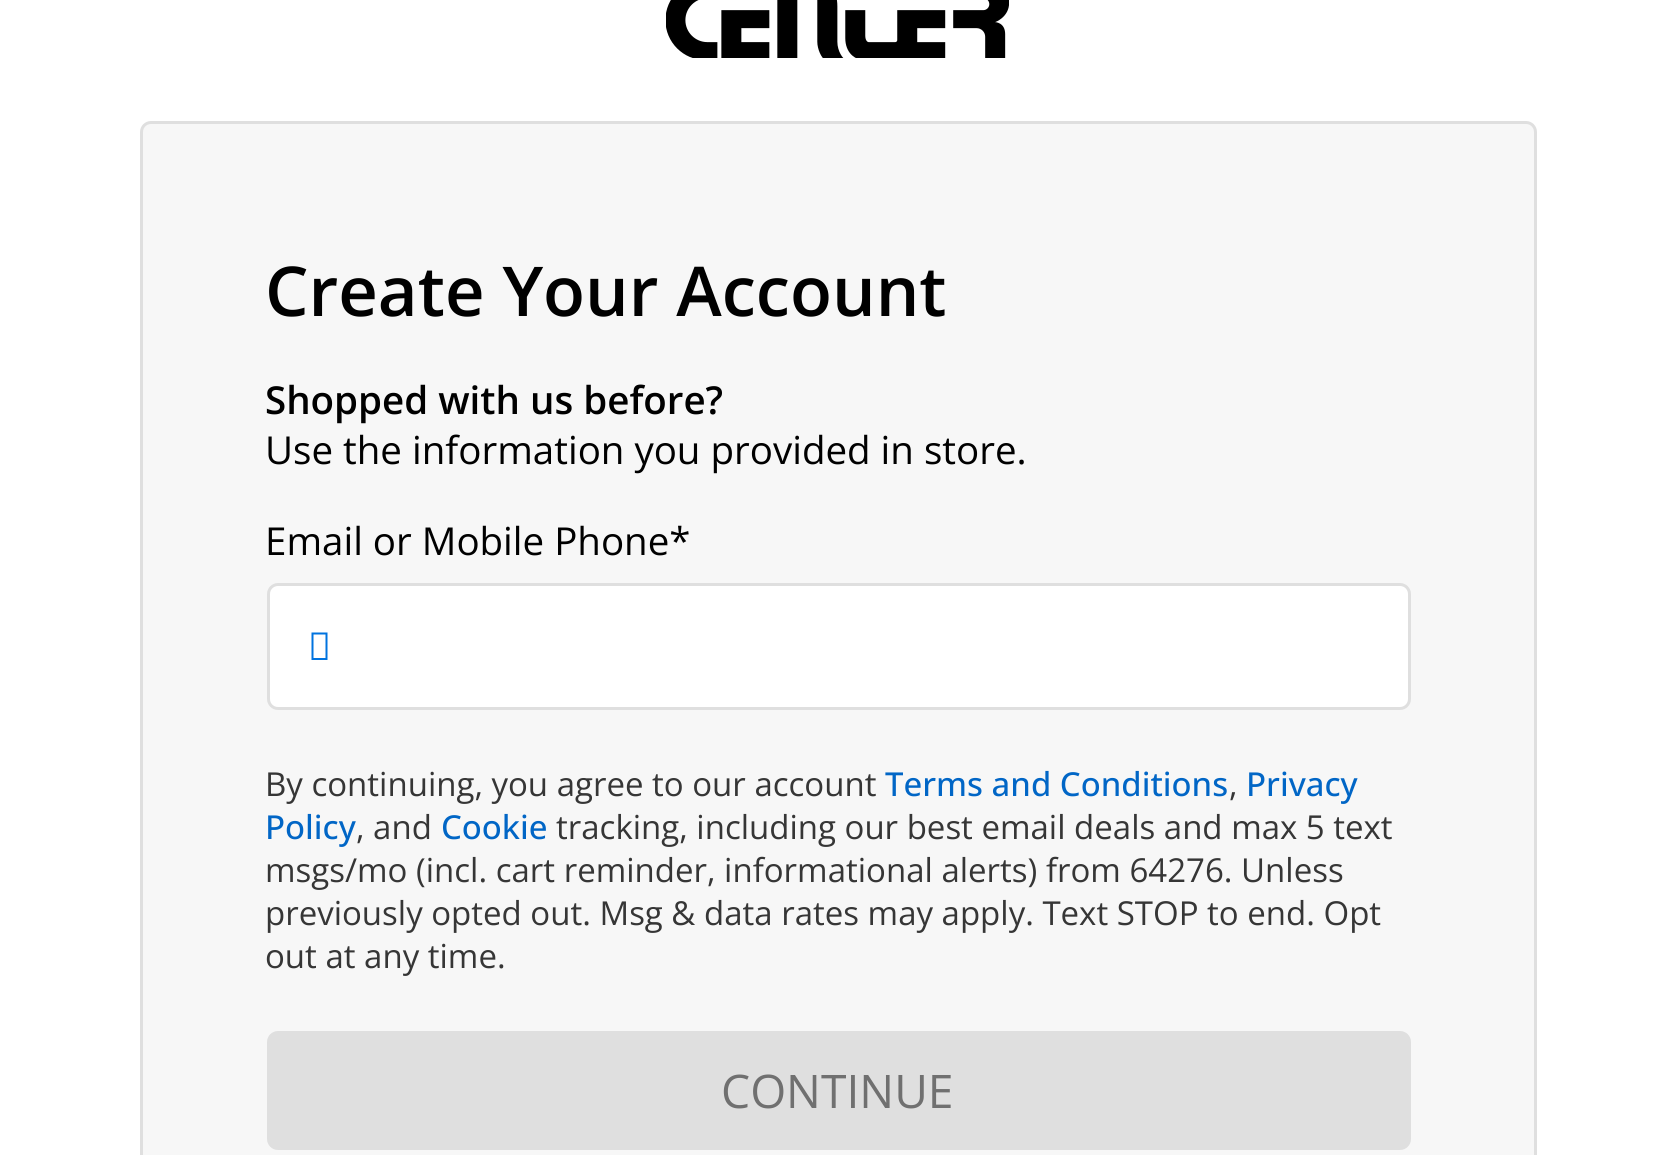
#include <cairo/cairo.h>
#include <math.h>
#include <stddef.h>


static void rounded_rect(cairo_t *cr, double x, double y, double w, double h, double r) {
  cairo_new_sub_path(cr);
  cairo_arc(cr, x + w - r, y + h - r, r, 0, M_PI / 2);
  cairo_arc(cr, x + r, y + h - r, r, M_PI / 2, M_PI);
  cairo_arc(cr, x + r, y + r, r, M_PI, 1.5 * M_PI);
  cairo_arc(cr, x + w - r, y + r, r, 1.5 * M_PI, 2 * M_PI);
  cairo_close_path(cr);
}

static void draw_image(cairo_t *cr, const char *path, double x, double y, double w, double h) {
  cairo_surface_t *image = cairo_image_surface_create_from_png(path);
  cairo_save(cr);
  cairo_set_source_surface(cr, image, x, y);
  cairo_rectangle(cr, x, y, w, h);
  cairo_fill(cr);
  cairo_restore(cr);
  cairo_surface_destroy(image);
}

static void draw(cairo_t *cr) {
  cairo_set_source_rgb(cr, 1, 1, 1);
  cairo_paint(cr);
  draw_image(cr, "images/1.png", 666, 0, 343, 58);
  cairo_set_source_rgb(cr, 247 / 255.0, 247 / 255.0, 247 / 255.0);
  rounded_rect(cr, 141.5, 122.5, 1394, 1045, 9.5);
  cairo_fill_preserve(cr);
  cairo_set_source_rgb(cr, 223 / 255.0, 223 / 255.0, 223 / 255.0);
  cairo_set_line_width(cr, 3);
  cairo_stroke(cr);
  cairo_set_source_rgb(cr, 1, 1, 1);
  rounded_rect(cr, 268.5, 584.5, 1141, 124, 9.5);
  cairo_fill_preserve(cr);
  cairo_set_source_rgb(cr, 223 / 255.0, 223 / 255.0, 223 / 255.0);
  cairo_stroke(cr);
  cairo_set_source_rgb(cr, 0, 115 / 255.0, 223 / 255.0);
  cairo_new_path(cr);
  cairo_move_to(cr, 311.5, 660);
  cairo_line_to(cr, 311.5, 632.5);
  cairo_line_to(cr, 327.5, 632.5);
  cairo_line_to(cr, 327.5, 660);
  cairo_close_path(cr);
  cairo_move_to(cr, 313.5, 658);
  cairo_line_to(cr, 325.5, 658);
  cairo_line_to(cr, 325.5, 634.5);
  cairo_line_to(cr, 313.5, 634.5);
  cairo_close_path(cr);
  cairo_fill(cr);
  cairo_set_source_rgb(cr, 223 / 255.0, 223 / 255.0, 223 / 255.0);
  rounded_rect(cr, 268.5, 1032.5, 1141, 116, 9.5);
  cairo_fill_preserve(cr);
  cairo_stroke(cr);
  cairo_select_font_face(cr, "Open Sans SemiBold", CAIRO_FONT_SLANT_NORMAL, CAIRO_FONT_WEIGHT_NORMAL);
  cairo_set_font_size(cr, 68.75);
  cairo_set_source_rgb(cr, 0, 0, 0);
  cairo_move_to(cr, 265, 316);
  cairo_show_text(cr, "Create Your Account");
  cairo_set_font_size(cr, 38.5);
  cairo_move_to(cr, 265, 414);
  cairo_show_text(cr, "Shopped with us before?");
  cairo_select_font_face(cr, "Open Sans", CAIRO_FONT_SLANT_NORMAL, CAIRO_FONT_WEIGHT_NORMAL);
  cairo_move_to(cr, 265, 464);
  cairo_show_text(cr, "Use the information you provided in store.");
  cairo_move_to(cr, 265, 555);
  cairo_show_text(cr, "Email or Mobile Phone*");
  cairo_set_font_size(cr, 33);
  cairo_set_source_rgb(cr, 54 / 255.0, 54 / 255.0, 54 / 255.0);
  cairo_move_to(cr, 265, 796);
  cairo_show_text(cr, "By continuing, you agree to our account");
  cairo_select_font_face(cr, "Open Sans Medium", CAIRO_FONT_SLANT_NORMAL, CAIRO_FONT_WEIGHT_NORMAL);
  cairo_set_source_rgb(cr, 1 / 255.0, 102 / 255.0, 198 / 255.0);
  cairo_move_to(cr, 885, 796);
  cairo_show_text(cr, "Terms and Conditions");
  cairo_select_font_face(cr, "Open Sans", CAIRO_FONT_SLANT_NORMAL, CAIRO_FONT_WEIGHT_NORMAL);
  cairo_set_source_rgb(cr, 54 / 255.0, 54 / 255.0, 54 / 255.0);
  cairo_move_to(cr, 1229, 796);
  cairo_show_text(cr, ",");
  cairo_select_font_face(cr, "Open Sans Medium", CAIRO_FONT_SLANT_NORMAL, CAIRO_FONT_WEIGHT_NORMAL);
  cairo_set_source_rgb(cr, 1 / 255.0, 102 / 255.0, 198 / 255.0);
  cairo_move_to(cr, 1246, 796);
  cairo_show_text(cr, "Privacy");
  cairo_move_to(cr, 265, 839);
  cairo_show_text(cr, "Policy");
  cairo_select_font_face(cr, "Open Sans", CAIRO_FONT_SLANT_NORMAL, CAIRO_FONT_WEIGHT_NORMAL);
  cairo_set_source_rgb(cr, 54 / 255.0, 54 / 255.0, 54 / 255.0);
  cairo_move_to(cr, 356, 839);
  cairo_show_text(cr, ", and");
  cairo_select_font_face(cr, "Open Sans Medium", CAIRO_FONT_SLANT_NORMAL, CAIRO_FONT_WEIGHT_NORMAL);
  cairo_set_source_rgb(cr, 1 / 255.0, 102 / 255.0, 198 / 255.0);
  cairo_move_to(cr, 441, 839);
  cairo_show_text(cr, "Cookie");
  cairo_select_font_face(cr, "Open Sans", CAIRO_FONT_SLANT_NORMAL, CAIRO_FONT_WEIGHT_NORMAL);
  cairo_set_source_rgb(cr, 54 / 255.0, 54 / 255.0, 54 / 255.0);
  cairo_move_to(cr, 556, 839);
  cairo_show_text(cr, "tracking, including our best email deals and max 5 text");
  cairo_move_to(cr, 265, 882);
  cairo_show_text(cr, "msgs/mo (incl. cart reminder, informational alerts) from 64276. Unless");
  cairo_move_to(cr, 265, 925);
  cairo_show_text(cr, "previously opted out. Msg & data rates may apply. Text STOP to end. Opt");
  cairo_move_to(cr, 265, 968);
  cairo_show_text(cr, "out at any time.");
  cairo_set_font_size(cr, 46.25);
  cairo_set_source_rgb(cr, 112 / 255.0, 112 / 255.0, 112 / 255.0);
  cairo_move_to(cr, 721, 1108);
  cairo_show_text(cr, "CONTINUE");
}

int main(void) {
  cairo_surface_t *surface = cairo_image_surface_create(CAIRO_FORMAT_RGB24, 1674, 1155);
  cairo_t *cr = cairo_create(surface);
  cairo_font_options_t *options = cairo_font_options_create();
  cairo_font_options_set_hint_metrics(options, CAIRO_HINT_METRICS_OFF);
  cairo_font_options_set_hint_style(options, CAIRO_HINT_STYLE_NONE);
  cairo_set_font_options(cr, options);
  cairo_set_miter_limit(cr, 4);
  draw(cr);
  cairo_surface_write_to_png(surface, "out.png");
  cairo_font_options_destroy(options);
  cairo_destroy(cr);
  cairo_surface_destroy(surface);
  return 0;
}
